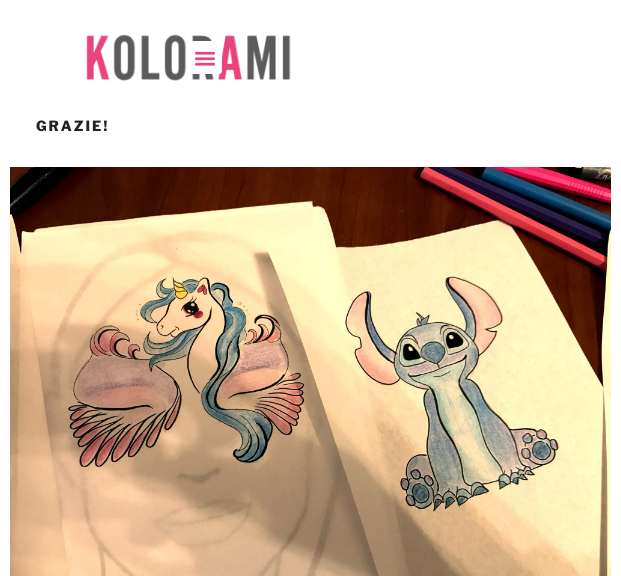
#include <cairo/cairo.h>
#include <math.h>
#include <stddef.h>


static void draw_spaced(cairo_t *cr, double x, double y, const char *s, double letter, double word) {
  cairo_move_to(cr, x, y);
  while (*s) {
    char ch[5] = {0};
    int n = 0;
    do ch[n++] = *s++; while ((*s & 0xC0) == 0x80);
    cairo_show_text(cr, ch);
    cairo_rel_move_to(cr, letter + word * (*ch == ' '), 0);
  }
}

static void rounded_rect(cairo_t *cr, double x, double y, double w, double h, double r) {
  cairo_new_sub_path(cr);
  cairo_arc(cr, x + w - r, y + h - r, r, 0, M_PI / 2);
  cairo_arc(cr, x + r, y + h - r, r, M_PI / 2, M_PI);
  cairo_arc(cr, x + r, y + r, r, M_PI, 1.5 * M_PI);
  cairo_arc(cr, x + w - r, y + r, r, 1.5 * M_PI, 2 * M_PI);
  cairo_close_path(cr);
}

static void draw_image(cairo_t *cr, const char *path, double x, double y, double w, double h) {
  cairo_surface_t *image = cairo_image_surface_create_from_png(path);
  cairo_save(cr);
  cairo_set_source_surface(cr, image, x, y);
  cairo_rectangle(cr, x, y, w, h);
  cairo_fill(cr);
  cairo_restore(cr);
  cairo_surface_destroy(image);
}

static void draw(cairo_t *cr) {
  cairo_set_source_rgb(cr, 1, 1, 1);
  cairo_paint(cr);
  draw_image(cr, "images/1.png", 86, 34, 205, 47);
  cairo_set_source_rgb(cr, 1, 1, 1);
  rounded_rect(cr, 189, 41, 33, 33, 3);
  cairo_fill(cr);
  draw_image(cr, "images/2.png", 194, 51, 22, 15);
  draw_image(cr, "images/3.png", 10, 167, 601, 409);
  cairo_select_font_face(cr, "Libre Franklin ExtraBold", CAIRO_FONT_SLANT_NORMAL, CAIRO_FONT_WEIGHT_NORMAL);
  cairo_set_font_size(cr, 14);
  cairo_set_source_rgb(cr, 34 / 255.0, 34 / 255.0, 34 / 255.0);
  draw_spaced(cr, 36, 131, "GRAZIE!", 2, 0);
}

int main(void) {
  cairo_surface_t *surface = cairo_image_surface_create(CAIRO_FORMAT_RGB24, 621, 576);
  cairo_t *cr = cairo_create(surface);
  cairo_font_options_t *options = cairo_font_options_create();
  cairo_font_options_set_hint_metrics(options, CAIRO_HINT_METRICS_OFF);
  cairo_font_options_set_hint_style(options, CAIRO_HINT_STYLE_NONE);
  cairo_set_font_options(cr, options);
  cairo_set_miter_limit(cr, 4);
  draw(cr);
  cairo_surface_write_to_png(surface, "out.png");
  cairo_font_options_destroy(options);
  cairo_destroy(cr);
  cairo_surface_destroy(surface);
  return 0;
}
